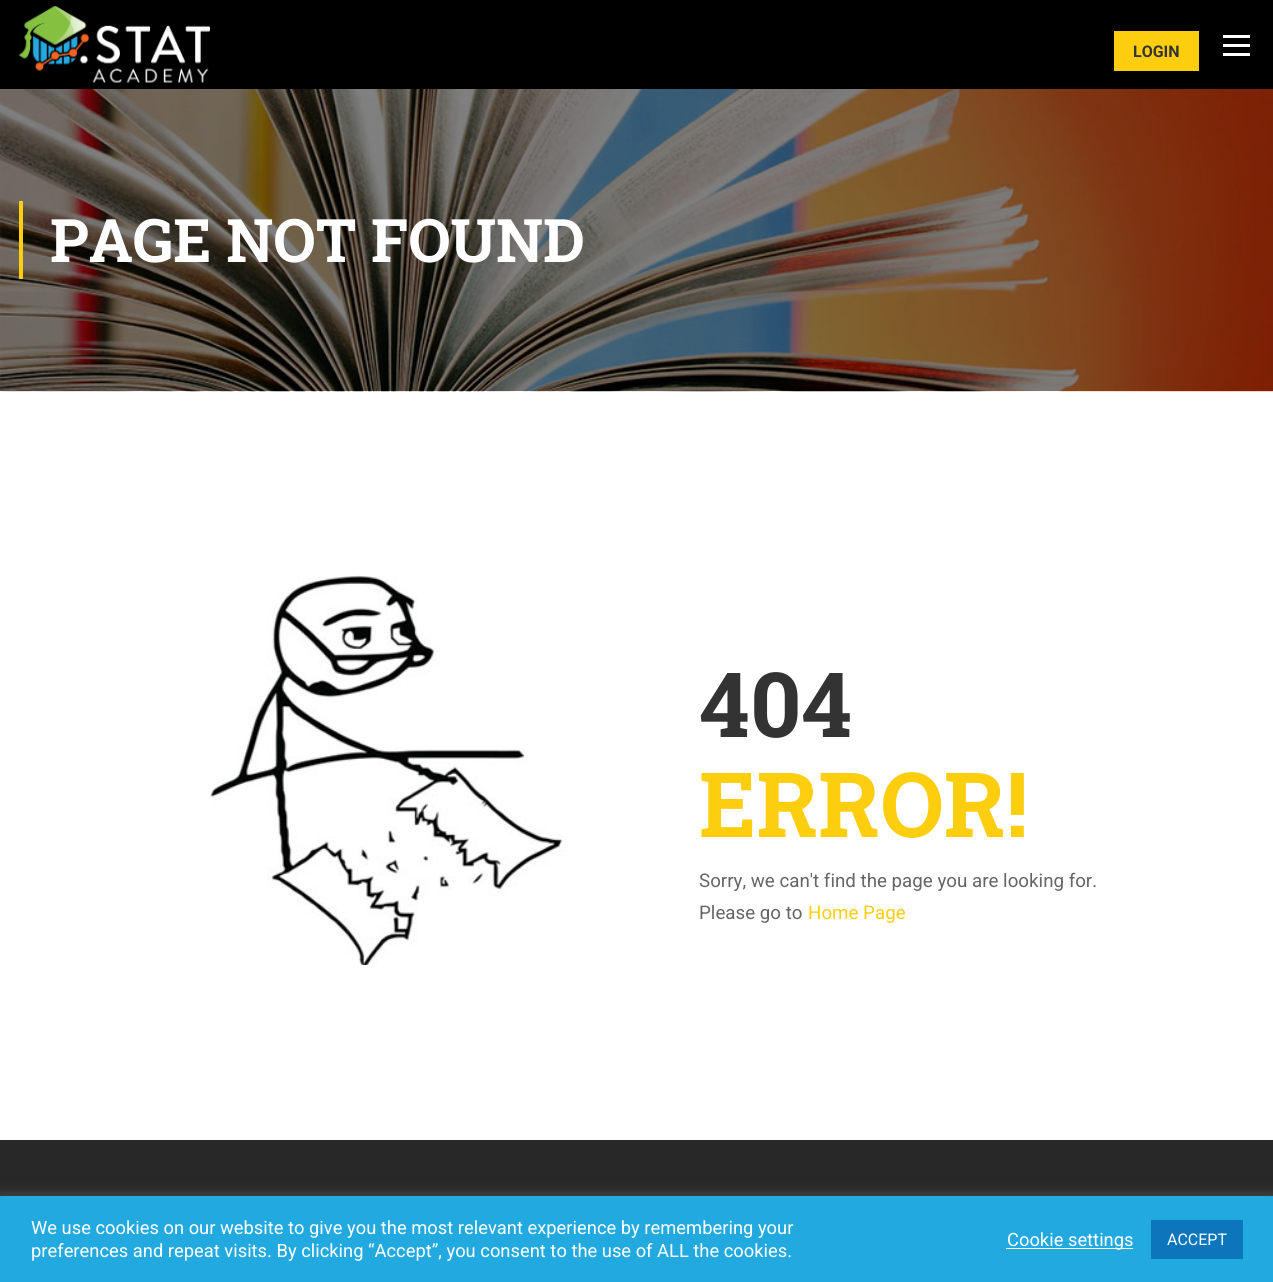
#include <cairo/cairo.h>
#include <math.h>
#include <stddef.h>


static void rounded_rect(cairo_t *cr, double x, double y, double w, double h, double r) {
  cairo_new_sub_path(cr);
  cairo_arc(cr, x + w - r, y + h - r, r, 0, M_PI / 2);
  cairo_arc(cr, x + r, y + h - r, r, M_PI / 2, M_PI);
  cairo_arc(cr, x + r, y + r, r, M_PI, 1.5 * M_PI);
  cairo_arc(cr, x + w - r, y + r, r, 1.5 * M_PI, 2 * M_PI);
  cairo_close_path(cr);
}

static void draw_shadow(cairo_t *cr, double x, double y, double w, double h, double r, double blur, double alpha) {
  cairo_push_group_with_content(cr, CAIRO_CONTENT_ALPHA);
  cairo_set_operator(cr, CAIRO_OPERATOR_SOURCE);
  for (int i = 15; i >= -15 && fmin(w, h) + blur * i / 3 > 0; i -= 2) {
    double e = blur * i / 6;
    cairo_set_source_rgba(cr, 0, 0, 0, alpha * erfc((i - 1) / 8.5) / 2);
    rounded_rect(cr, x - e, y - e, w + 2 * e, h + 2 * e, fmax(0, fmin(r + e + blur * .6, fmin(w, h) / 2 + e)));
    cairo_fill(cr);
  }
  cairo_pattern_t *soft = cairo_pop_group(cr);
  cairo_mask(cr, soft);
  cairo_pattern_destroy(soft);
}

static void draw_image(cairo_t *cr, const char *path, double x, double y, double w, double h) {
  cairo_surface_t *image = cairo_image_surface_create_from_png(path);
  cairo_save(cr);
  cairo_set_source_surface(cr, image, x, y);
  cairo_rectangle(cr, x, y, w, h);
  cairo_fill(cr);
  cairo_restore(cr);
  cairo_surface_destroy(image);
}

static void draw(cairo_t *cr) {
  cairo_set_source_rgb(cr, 1, 1, 1);
  cairo_paint(cr);
  cairo_set_source_rgb(cr, 0, 0, 0);
  cairo_rectangle(cr, 0, 0, 1273, 89);
  cairo_fill(cr);
  draw_image(cr, "images/1.png", 18, 6, 192, 77);
  cairo_set_source_rgb(cr, 253 / 255.0, 206 / 255.0, 13 / 255.0);
  cairo_rectangle(cr, 1114, 31, 85, 40);
  cairo_fill(cr);
  cairo_set_source_rgb(cr, 1, 1, 1);
  cairo_rectangle(cr, 1223, 35, 27, 3);
  cairo_fill(cr);
  cairo_rectangle(cr, 1223, 44, 27, 3);
  cairo_fill(cr);
  cairo_rectangle(cr, 1223, 53, 27, 3);
  cairo_fill(cr);
  draw_image(cr, "images/2.png", 0, 89, 1273, 303);
  cairo_set_source_rgb(cr, 253 / 255.0, 206 / 255.0, 13 / 255.0);
  cairo_rectangle(cr, 19, 201, 4, 78);
  cairo_fill(cr);
  draw_image(cr, "images/3.png", 209, 575, 358, 390);
  cairo_set_source_rgb(cr, 40 / 255.0, 40 / 255.0, 40 / 255.0);
  cairo_rectangle(cr, 0, 1140, 1273, 56);
  cairo_fill(cr);
  cairo_set_source_rgb(cr, 172 / 255.0, 171 / 255.0, 171 / 255.0);
  draw_shadow(cr, 0, 1195, 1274, 86, 0, 6, 0.3);
  cairo_set_source_rgb(cr, 34 / 255.0, 169 / 255.0, 224 / 255.0);
  cairo_rectangle(cr, 0, 1196, 1273, 86);
  cairo_fill(cr);
  cairo_set_source_rgb(cr, 1, 1, 1);
  cairo_rectangle(cr, 1006, 1248, 127, 1);
  cairo_fill(cr);
  cairo_set_source_rgb(cr, 11 / 255.0, 118 / 255.0, 187 / 255.0);
  cairo_rectangle(cr, 1151, 1220, 92, 39);
  cairo_fill(cr);
  cairo_select_font_face(cr, "Roboto", CAIRO_FONT_SLANT_NORMAL, CAIRO_FONT_WEIGHT_BOLD);
  cairo_set_font_size(cr, 16);
  cairo_set_source_rgb(cr, 51 / 255.0, 51 / 255.0, 51 / 255.0);
  cairo_move_to(cr, 1133, 57);
  cairo_show_text(cr, "LOGIN");
  cairo_select_font_face(cr, "Roboto Slab", CAIRO_FONT_SLANT_NORMAL, CAIRO_FONT_WEIGHT_BOLD);
  cairo_set_font_size(cr, 60);
  cairo_set_source_rgb(cr, 1, 1, 1);
  cairo_move_to(cr, 50, 262);
  cairo_show_text(cr, "PAGE NOT FOUND");
  cairo_set_font_size(cr, 90);
  cairo_set_source_rgb(cr, 51 / 255.0, 51 / 255.0, 51 / 255.0);
  cairo_move_to(cr, 699, 737);
  cairo_show_text(cr, "404");
  cairo_set_source_rgb(cr, 253 / 255.0, 206 / 255.0, 13 / 255.0);
  cairo_move_to(cr, 699, 837);
  cairo_show_text(cr, "ERROR!");
  cairo_select_font_face(cr, "Roboto", CAIRO_FONT_SLANT_NORMAL, CAIRO_FONT_WEIGHT_NORMAL);
  cairo_set_font_size(cr, 18.75);
  cairo_set_source_rgb(cr, 102 / 255.0, 102 / 255.0, 102 / 255.0);
  cairo_move_to(cr, 699, 887);
  cairo_show_text(cr, "Sorry, we can't find the page you are looking for.");
  cairo_move_to(cr, 699, 919);
  cairo_show_text(cr, "Please go to");
  cairo_set_source_rgb(cr, 253 / 255.0, 206 / 255.0, 13 / 255.0);
  cairo_move_to(cr, 808, 919);
  cairo_show_text(cr, "Home Page");
  cairo_set_font_size(cr, 18.35);
  cairo_set_source_rgb(cr, 1, 1, 1);
  cairo_move_to(cr, 31, 1234);
  cairo_show_text(cr, "We use cookies on our website to give you the most relevant experience by remembering your");
  cairo_move_to(cr, 31, 1257);
  cairo_show_text(cr, "preferences and repeat visits. By clicking “Accept”, you consent to the use of ALL the cookies.");
  cairo_move_to(cr, 1007, 1246);
  cairo_show_text(cr, "Cookie settings");
  cairo_set_font_size(cr, 16);
  cairo_move_to(cr, 1167, 1245);
  cairo_show_text(cr, "ACCEPT");
}

int main(void) {
  cairo_surface_t *surface = cairo_image_surface_create(CAIRO_FORMAT_RGB24, 1273, 1282);
  cairo_t *cr = cairo_create(surface);
  cairo_font_options_t *options = cairo_font_options_create();
  cairo_font_options_set_hint_metrics(options, CAIRO_HINT_METRICS_OFF);
  cairo_font_options_set_hint_style(options, CAIRO_HINT_STYLE_NONE);
  cairo_set_font_options(cr, options);
  cairo_set_miter_limit(cr, 4);
  draw(cr);
  cairo_surface_write_to_png(surface, "out.png");
  cairo_font_options_destroy(options);
  cairo_destroy(cr);
  cairo_surface_destroy(surface);
  return 0;
}
